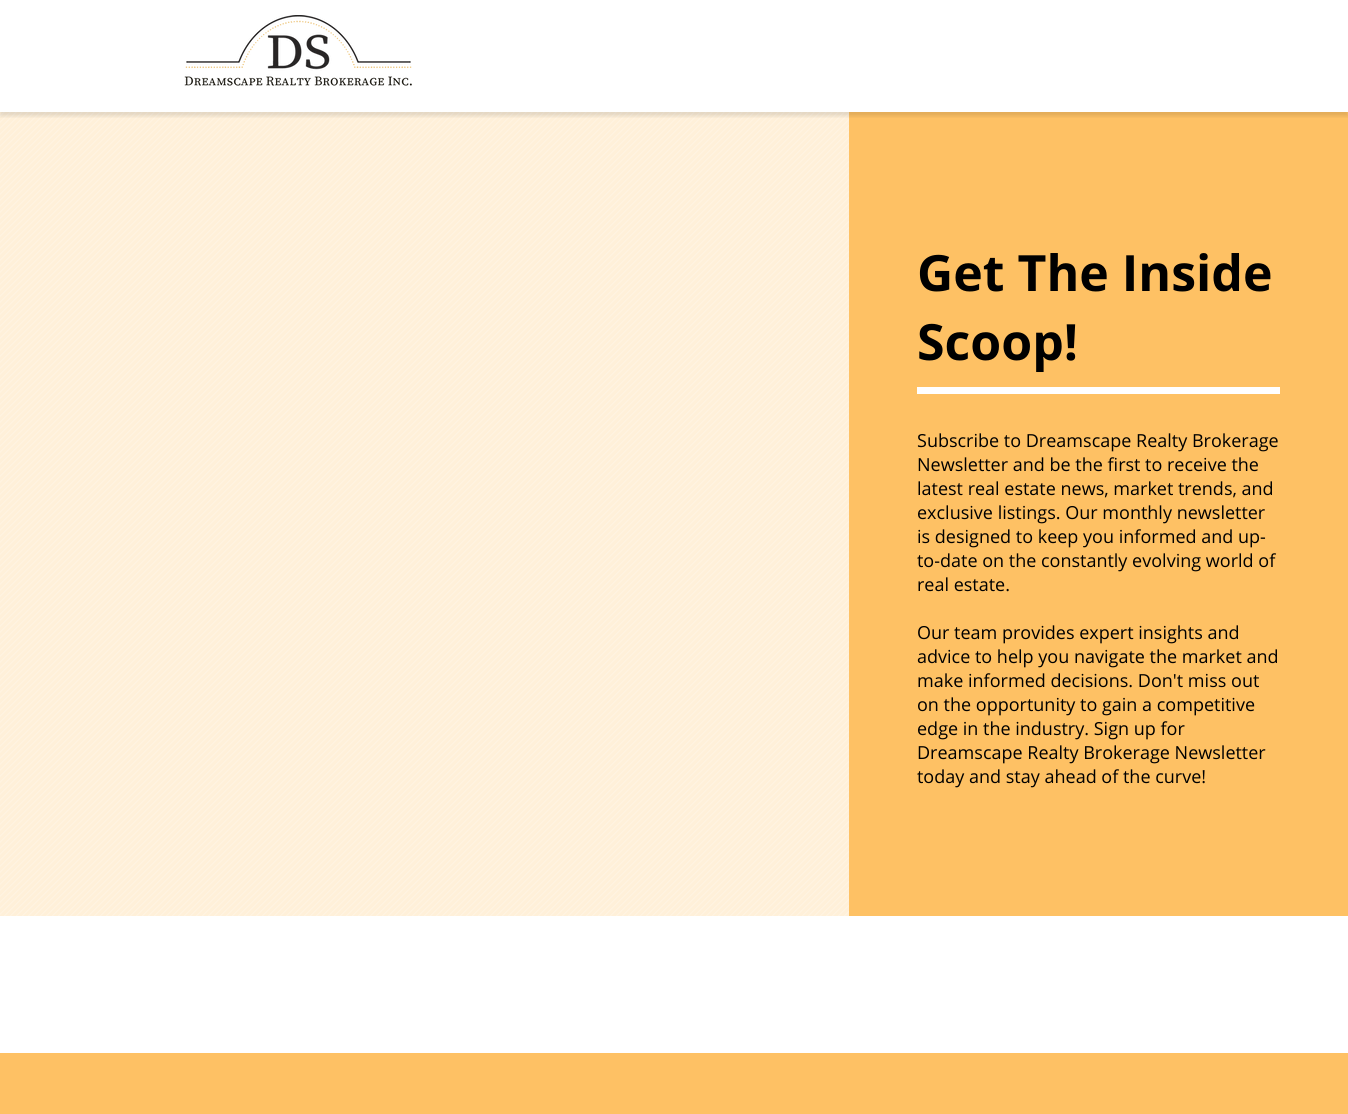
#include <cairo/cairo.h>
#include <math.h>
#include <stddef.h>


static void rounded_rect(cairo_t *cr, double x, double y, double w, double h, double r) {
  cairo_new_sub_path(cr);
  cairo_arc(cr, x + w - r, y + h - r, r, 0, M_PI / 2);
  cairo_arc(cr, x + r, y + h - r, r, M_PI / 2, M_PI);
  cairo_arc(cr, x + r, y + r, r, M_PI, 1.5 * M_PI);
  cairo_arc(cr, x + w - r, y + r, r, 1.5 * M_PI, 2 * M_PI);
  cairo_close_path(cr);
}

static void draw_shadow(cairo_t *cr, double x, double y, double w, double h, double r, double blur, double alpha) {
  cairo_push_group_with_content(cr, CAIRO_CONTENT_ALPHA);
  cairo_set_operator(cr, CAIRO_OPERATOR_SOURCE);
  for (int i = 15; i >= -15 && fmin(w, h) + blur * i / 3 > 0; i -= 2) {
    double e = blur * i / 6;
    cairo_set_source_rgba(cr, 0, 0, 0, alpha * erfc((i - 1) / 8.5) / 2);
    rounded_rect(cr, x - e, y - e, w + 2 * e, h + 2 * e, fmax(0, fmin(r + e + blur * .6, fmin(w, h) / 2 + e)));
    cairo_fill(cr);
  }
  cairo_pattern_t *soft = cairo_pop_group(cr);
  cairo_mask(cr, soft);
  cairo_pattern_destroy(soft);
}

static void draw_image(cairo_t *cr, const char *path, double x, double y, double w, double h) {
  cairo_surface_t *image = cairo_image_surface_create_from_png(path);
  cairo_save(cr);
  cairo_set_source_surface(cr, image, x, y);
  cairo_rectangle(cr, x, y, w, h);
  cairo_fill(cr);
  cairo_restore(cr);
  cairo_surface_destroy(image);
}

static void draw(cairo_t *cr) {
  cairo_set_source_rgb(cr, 1, 1, 1);
  cairo_paint(cr);
  cairo_set_source_rgb(cr, 1, 240 / 255.0, 217 / 255.0);
  cairo_rectangle(cr, 0, 112, 849, 804);
  cairo_fill(cr);
  draw_image(cr, "images/2.png", 0, 112, 849, 804);
  cairo_set_source_rgb(cr, 254 / 255.0, 193 / 255.0, 100 / 255.0);
  cairo_rectangle(cr, 849, 112, 499, 804);
  cairo_fill(cr);
  cairo_save(cr);
  cairo_rectangle(cr, 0, 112, 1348, 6);
  cairo_clip(cr);
  cairo_set_source_rgb(cr, 0, 0, 0);
  draw_shadow(cr, 0, 4, 1348, 112, 0, 2, 0.11);
  cairo_restore(cr);
  draw_image(cr, "images/1.png", 184, 15, 228, 71);
  cairo_set_source_rgb(cr, 1, 1, 1);
  cairo_rectangle(cr, 917, 387, 363, 7);
  cairo_fill(cr);
  cairo_set_source_rgb(cr, 254 / 255.0, 193 / 255.0, 100 / 255.0);
  cairo_rectangle(cr, 0, 1053, 1348, 61);
  cairo_fill(cr);
  cairo_select_font_face(cr, "Open Sans", CAIRO_FONT_SLANT_NORMAL, CAIRO_FONT_WEIGHT_BOLD);
  cairo_set_font_size(cr, 50);
  cairo_set_source_rgb(cr, 0, 0, 0);
  cairo_move_to(cr, 917, 291);
  cairo_show_text(cr, "Get The Inside");
  cairo_move_to(cr, 917, 360);
  cairo_show_text(cr, "Scoop!");
  cairo_select_font_face(cr, "Open Sans", CAIRO_FONT_SLANT_NORMAL, CAIRO_FONT_WEIGHT_NORMAL);
  cairo_set_font_size(cr, 18);
  cairo_move_to(cr, 917, 447);
  cairo_show_text(cr, "Subscribe to Dreamscape Realty Brokerage");
  cairo_move_to(cr, 917, 471);
  cairo_show_text(cr, "Newsletter and be the first to receive the");
  cairo_move_to(cr, 917, 495);
  cairo_show_text(cr, "latest real estate news, market trends, and");
  cairo_move_to(cr, 917, 519);
  cairo_show_text(cr, "exclusive listings. Our monthly newsletter");
  cairo_move_to(cr, 917, 543);
  cairo_show_text(cr, "is designed to keep you informed and up-");
  cairo_move_to(cr, 917, 567);
  cairo_show_text(cr, "to-date on the constantly evolving world of");
  cairo_move_to(cr, 917, 591);
  cairo_show_text(cr, "real estate.");
  cairo_move_to(cr, 917, 639);
  cairo_show_text(cr, "Our team provides expert insights and");
  cairo_move_to(cr, 917, 663);
  cairo_show_text(cr, "advice to help you navigate the market and");
  cairo_move_to(cr, 917, 687);
  cairo_show_text(cr, "make informed decisions. Don't miss out");
  cairo_move_to(cr, 917, 711);
  cairo_show_text(cr, "on the opportunity to gain a competitive");
  cairo_move_to(cr, 917, 735);
  cairo_show_text(cr, "edge in the industry. Sign up for");
  cairo_move_to(cr, 917, 759);
  cairo_show_text(cr, "Dreamscape Realty Brokerage Newsletter");
  cairo_move_to(cr, 917, 783);
  cairo_show_text(cr, "today and stay ahead of the curve!");
}

int main(void) {
  cairo_surface_t *surface = cairo_image_surface_create(CAIRO_FORMAT_RGB24, 1348, 1114);
  cairo_t *cr = cairo_create(surface);
  cairo_font_options_t *options = cairo_font_options_create();
  cairo_font_options_set_hint_metrics(options, CAIRO_HINT_METRICS_OFF);
  cairo_font_options_set_hint_style(options, CAIRO_HINT_STYLE_NONE);
  cairo_set_font_options(cr, options);
  cairo_set_miter_limit(cr, 4);
  draw(cr);
  cairo_surface_write_to_png(surface, "out.png");
  cairo_font_options_destroy(options);
  cairo_destroy(cr);
  cairo_surface_destroy(surface);
  return 0;
}
